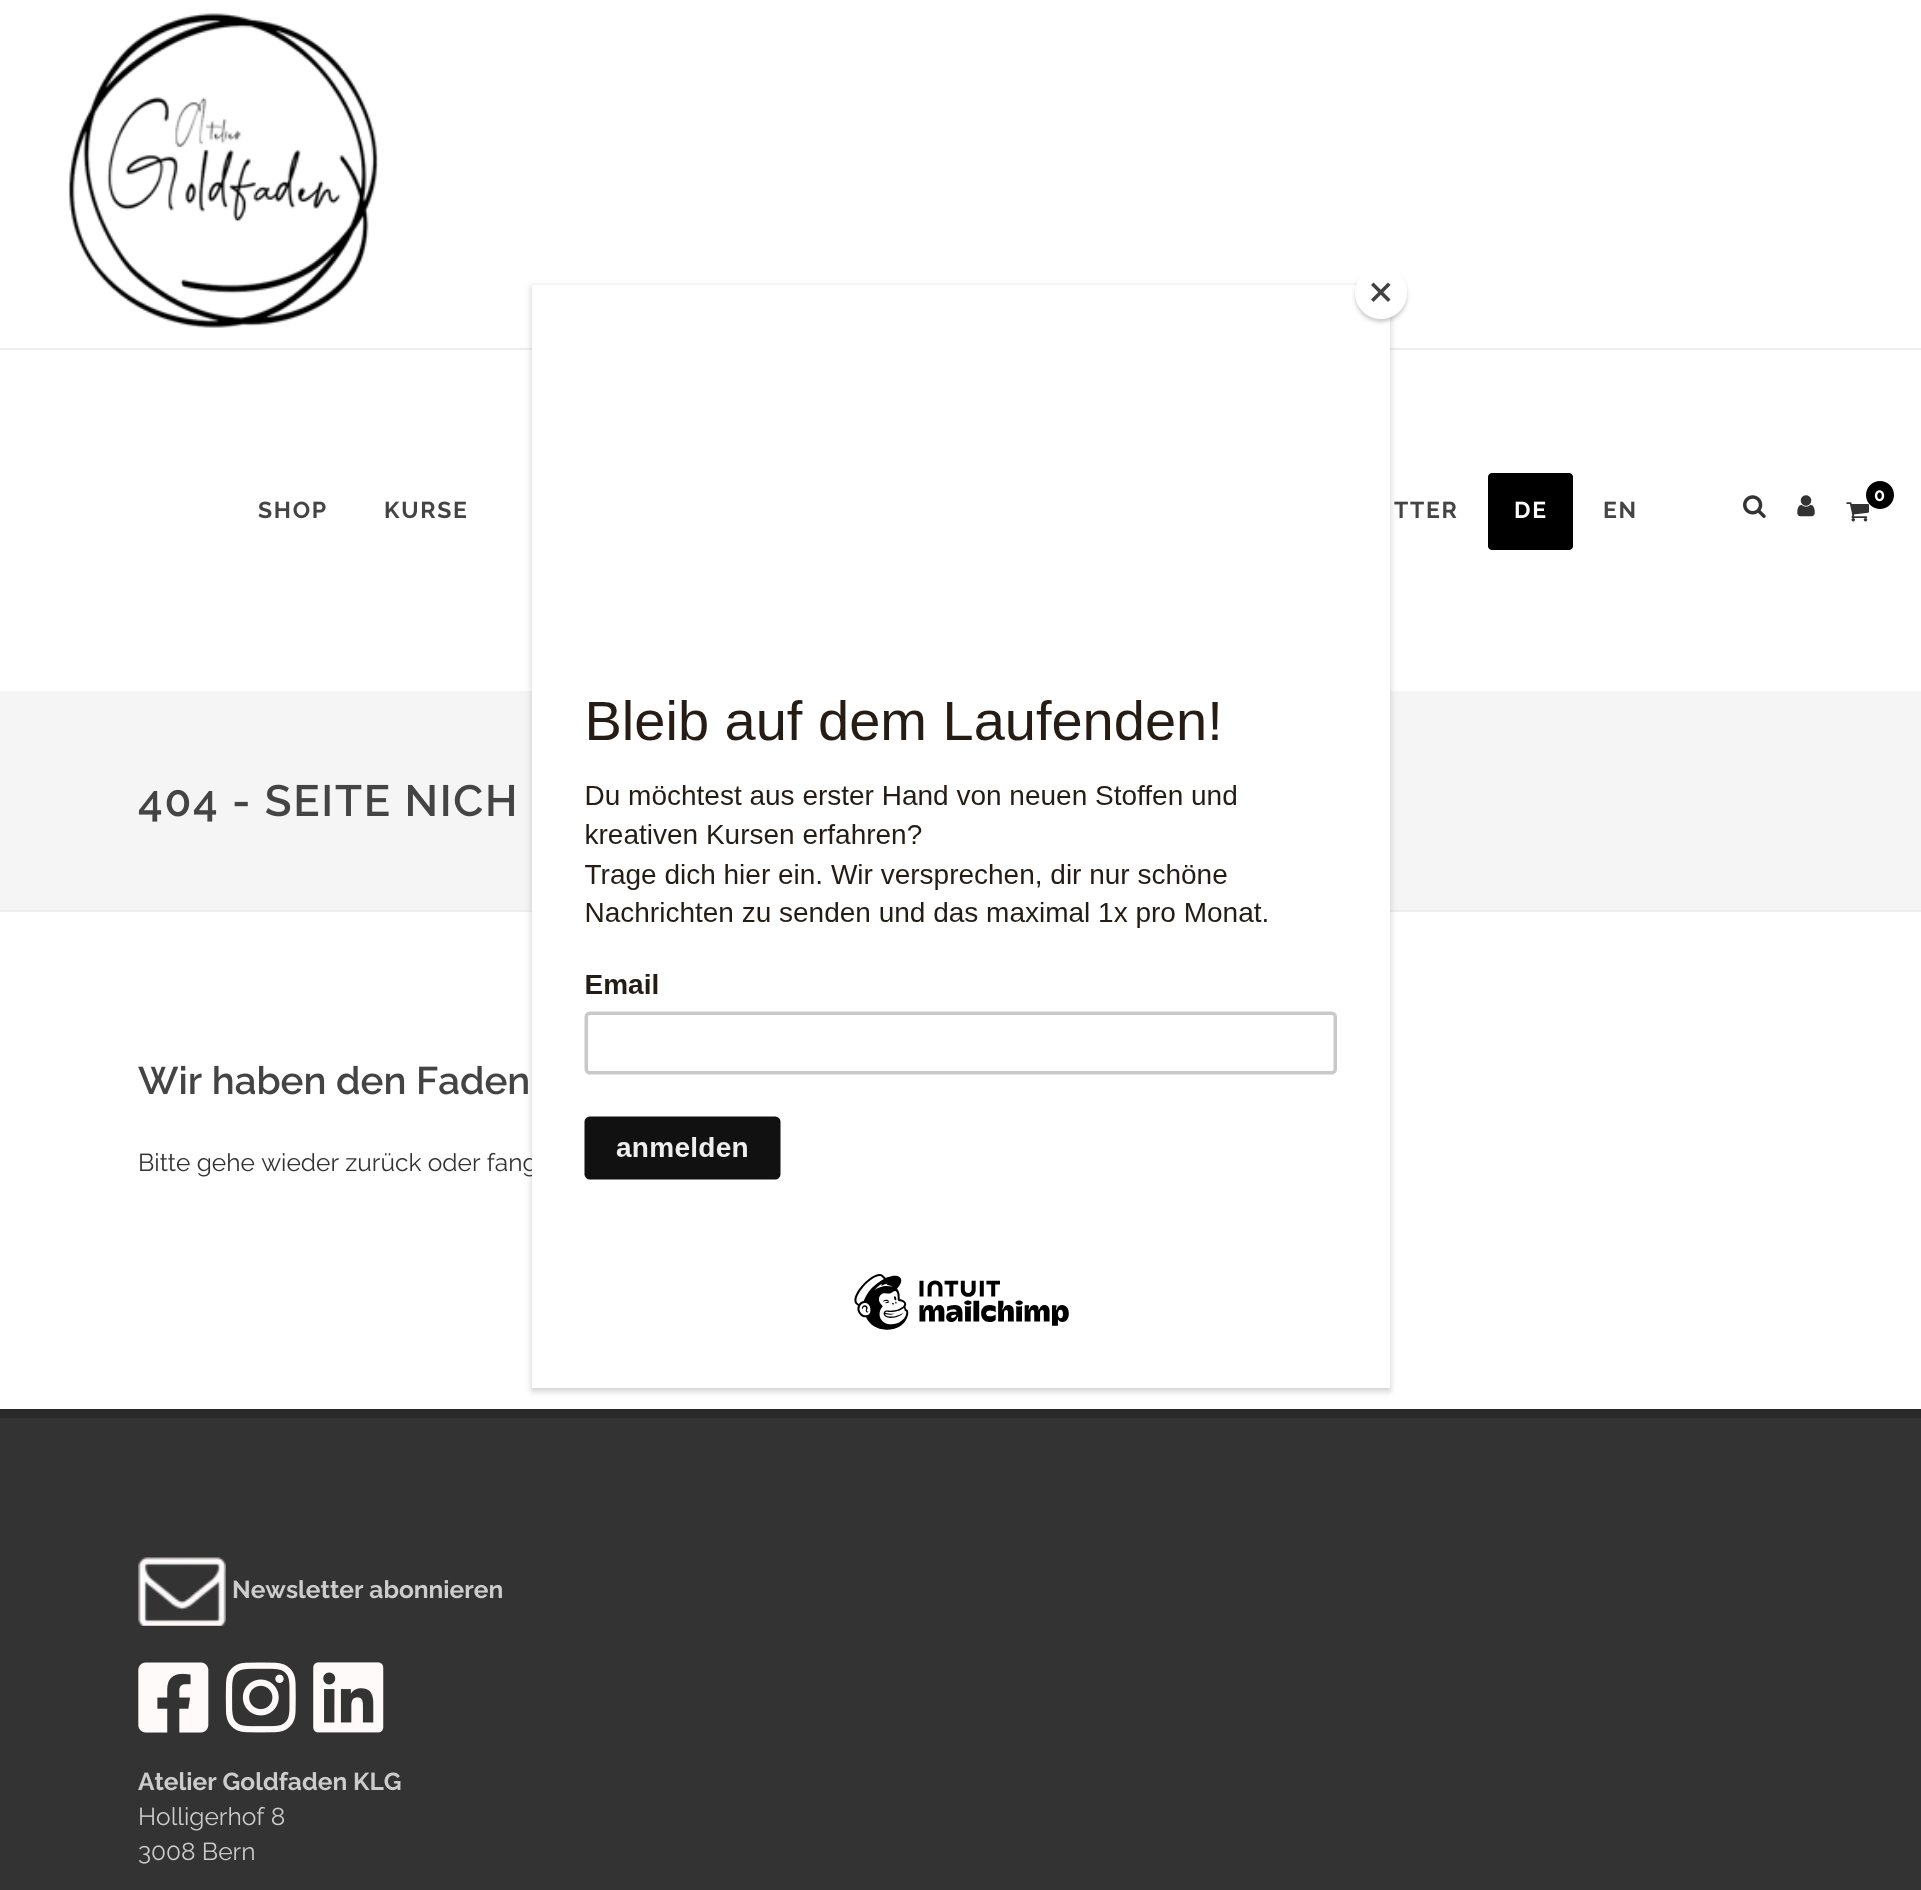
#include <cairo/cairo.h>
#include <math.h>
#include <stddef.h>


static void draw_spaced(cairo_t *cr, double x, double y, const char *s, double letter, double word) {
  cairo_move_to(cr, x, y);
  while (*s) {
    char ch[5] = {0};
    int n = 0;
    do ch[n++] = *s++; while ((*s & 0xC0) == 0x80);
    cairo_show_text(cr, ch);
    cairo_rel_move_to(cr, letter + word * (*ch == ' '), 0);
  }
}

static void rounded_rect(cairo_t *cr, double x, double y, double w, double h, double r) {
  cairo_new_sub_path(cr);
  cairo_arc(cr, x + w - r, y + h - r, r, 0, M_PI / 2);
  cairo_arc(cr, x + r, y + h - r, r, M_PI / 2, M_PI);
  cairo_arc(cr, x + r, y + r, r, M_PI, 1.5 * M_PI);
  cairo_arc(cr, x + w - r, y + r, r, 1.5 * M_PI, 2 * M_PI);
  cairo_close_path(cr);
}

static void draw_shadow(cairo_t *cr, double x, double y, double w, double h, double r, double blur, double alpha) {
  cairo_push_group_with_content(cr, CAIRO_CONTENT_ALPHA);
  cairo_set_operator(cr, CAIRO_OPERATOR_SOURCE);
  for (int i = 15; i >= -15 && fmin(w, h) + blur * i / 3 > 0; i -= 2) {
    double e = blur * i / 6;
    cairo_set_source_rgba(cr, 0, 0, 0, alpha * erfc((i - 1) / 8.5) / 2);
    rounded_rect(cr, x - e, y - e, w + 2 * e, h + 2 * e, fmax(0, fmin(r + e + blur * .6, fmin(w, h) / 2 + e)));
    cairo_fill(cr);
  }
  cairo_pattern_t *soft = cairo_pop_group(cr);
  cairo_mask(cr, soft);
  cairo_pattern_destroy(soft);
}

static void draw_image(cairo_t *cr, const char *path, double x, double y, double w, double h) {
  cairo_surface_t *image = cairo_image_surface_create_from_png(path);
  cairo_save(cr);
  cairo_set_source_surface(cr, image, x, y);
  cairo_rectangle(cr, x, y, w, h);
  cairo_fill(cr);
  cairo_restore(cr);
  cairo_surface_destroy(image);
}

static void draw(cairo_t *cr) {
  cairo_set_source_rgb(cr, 1, 1, 1);
  cairo_paint(cr);
  cairo_set_source_rgb(cr, 238 / 255.0, 238 / 255.0, 238 / 255.0);
  cairo_rectangle(cr, 0, 348, 1921, 2);
  cairo_fill(cr);
  cairo_set_source_rgb(cr, 245 / 255.0, 245 / 255.0, 245 / 255.0);
  cairo_rectangle(cr, 0, 691, 1921, 219);
  cairo_fill(cr);
  cairo_set_source_rgb(cr, 238 / 255.0, 238 / 255.0, 238 / 255.0);
  cairo_rectangle(cr, 0, 910, 1921, 2);
  cairo_fill(cr);
  cairo_set_source_rgb(cr, 0, 0, 0);
  draw_shadow(cr, 532, 287, 858, 1104, 0, 3.5, 0.2);
  draw_image(cr, "images/2.png", 68, 13, 311, 315);
  cairo_set_source_rgb(cr, 0, 0, 0);
  rounded_rect(cr, 1488, 473, 85, 77, 4);
  cairo_fill(cr);
  draw_image(cr, "images/3.png", 1743, 495, 23, 23);
  draw_image(cr, "images/4.png", 1797, 495, 18, 22);
  draw_image(cr, "images/5.png", 1846, 502, 23, 20);
  cairo_arc(cr, 1880, 495, 14, 0, 2 * M_PI);
  cairo_fill(cr);
  cairo_set_source_rgb(cr, 51 / 255.0, 51 / 255.0, 51 / 255.0);
  cairo_rectangle(cr, 0, 1418, 1921, 472);
  cairo_fill(cr);
  cairo_set_source_rgb(cr, 41 / 255.0, 41 / 255.0, 41 / 255.0);
  cairo_rectangle(cr, 0, 1409, 1921, 9);
  cairo_fill(cr);
  draw_image(cr, "images/6.png", 138, 1557, 88, 69);
  draw_image(cr, "images/7.png", 138, 1662, 71, 71);
  draw_image(cr, "images/8.png", 225, 1662, 71, 71);
  draw_image(cr, "images/9.png", 313, 1662, 71, 71);
  cairo_select_font_face(cr, "Raleway", CAIRO_FONT_SLANT_NORMAL, CAIRO_FONT_WEIGHT_BOLD);
  cairo_set_font_size(cr, 23);
  cairo_set_source_rgb(cr, 68 / 255.0, 68 / 255.0, 68 / 255.0);
  draw_spaced(cr, 258, 518, "SHOP", 1.75, 0);
  draw_spaced(cr, 384, 518, "KURSE", 1.75, 0);
  draw_spaced(cr, 1394, 518, "TTER", 1.75, 0);
  cairo_set_source_rgb(cr, 1, 1, 1);
  draw_spaced(cr, 1514, 518, "DE", 1.75, 0);
  cairo_set_source_rgb(cr, 68 / 255.0, 68 / 255.0, 68 / 255.0);
  draw_spaced(cr, 1603, 518, "EN", 1.75, 0);
  cairo_set_font_size(cr, 18);
  cairo_set_source_rgb(cr, 1, 1, 1);
  cairo_move_to(cr, 1874, 501);
  cairo_show_text(cr, "0");
  cairo_select_font_face(cr, "Raleway SemiBold", CAIRO_FONT_SLANT_NORMAL, CAIRO_FONT_WEIGHT_NORMAL);
  cairo_set_font_size(cr, 43.75);
  cairo_set_source_rgb(cr, 68 / 255.0, 68 / 255.0, 68 / 255.0);
  draw_spaced(cr, 138, 816, "404 - SEITE NICH", 1.75, 0);
  cairo_set_font_size(cr, 38.5);
  cairo_move_to(cr, 138, 1094);
  cairo_show_text(cr, "Wir haben den Faden");
  cairo_select_font_face(cr, "Raleway", CAIRO_FONT_SLANT_NORMAL, CAIRO_FONT_WEIGHT_NORMAL);
  cairo_set_font_size(cr, 24.5);
  cairo_set_source_rgb(cr, 51 / 255.0, 51 / 255.0, 51 / 255.0);
  cairo_move_to(cr, 138, 1171);
  cairo_show_text(cr, "Bitte gehe wieder zurück oder fang");
  draw_image(cr, "images/1.png", 532, 285, 858, 1103);
  cairo_set_source_rgb(cr, 0, 0, 0);
  draw_shadow(cr, 1355, 270, 52, 52, 26, 2, 0.2);
  cairo_set_source_rgb(cr, 1, 1, 1);
  rounded_rect(cr, 1355, 266, 52, 53, 26);
  cairo_fill(cr);
  cairo_set_source_rgb(cr, 65 / 255.0, 65 / 255.0, 65 / 255.0);
  cairo_new_path(cr);
  cairo_move_to(cr, 1388, 282.5);
  cairo_line_to(cr, 1390.5, 285);
  cairo_line_to(cr, 1373.5, 302);
  cairo_line_to(cr, 1371, 299.5);
  cairo_close_path(cr);
  cairo_fill(cr);
  cairo_new_path(cr);
  cairo_move_to(cr, 1371, 285);
  cairo_line_to(cr, 1373.5, 282.5);
  cairo_line_to(cr, 1390.5, 299.5);
  cairo_line_to(cr, 1388, 302);
  cairo_close_path(cr);
  cairo_fill(cr);
  cairo_select_font_face(cr, "Raleway", CAIRO_FONT_SLANT_NORMAL, CAIRO_FONT_WEIGHT_BOLD);
  cairo_set_source_rgb(cr, 204 / 255.0, 204 / 255.0, 204 / 255.0);
  cairo_move_to(cr, 232, 1598);
  cairo_show_text(cr, "Newsletter abonnieren");
  cairo_move_to(cr, 138, 1790);
  cairo_show_text(cr, "Atelier Goldfaden KLG");
  cairo_select_font_face(cr, "Raleway", CAIRO_FONT_SLANT_NORMAL, CAIRO_FONT_WEIGHT_NORMAL);
  cairo_move_to(cr, 138, 1825);
  cairo_show_text(cr, "Holligerhof 8");
  cairo_move_to(cr, 138, 1860);
  cairo_show_text(cr, "3008 Bern");
}

int main(void) {
  cairo_surface_t *surface = cairo_image_surface_create(CAIRO_FORMAT_RGB24, 1921, 1890);
  cairo_t *cr = cairo_create(surface);
  cairo_font_options_t *options = cairo_font_options_create();
  cairo_font_options_set_hint_metrics(options, CAIRO_HINT_METRICS_OFF);
  cairo_font_options_set_hint_style(options, CAIRO_HINT_STYLE_NONE);
  cairo_set_font_options(cr, options);
  cairo_set_miter_limit(cr, 4);
  draw(cr);
  cairo_surface_write_to_png(surface, "out.png");
  cairo_font_options_destroy(options);
  cairo_destroy(cr);
  cairo_surface_destroy(surface);
  return 0;
}
